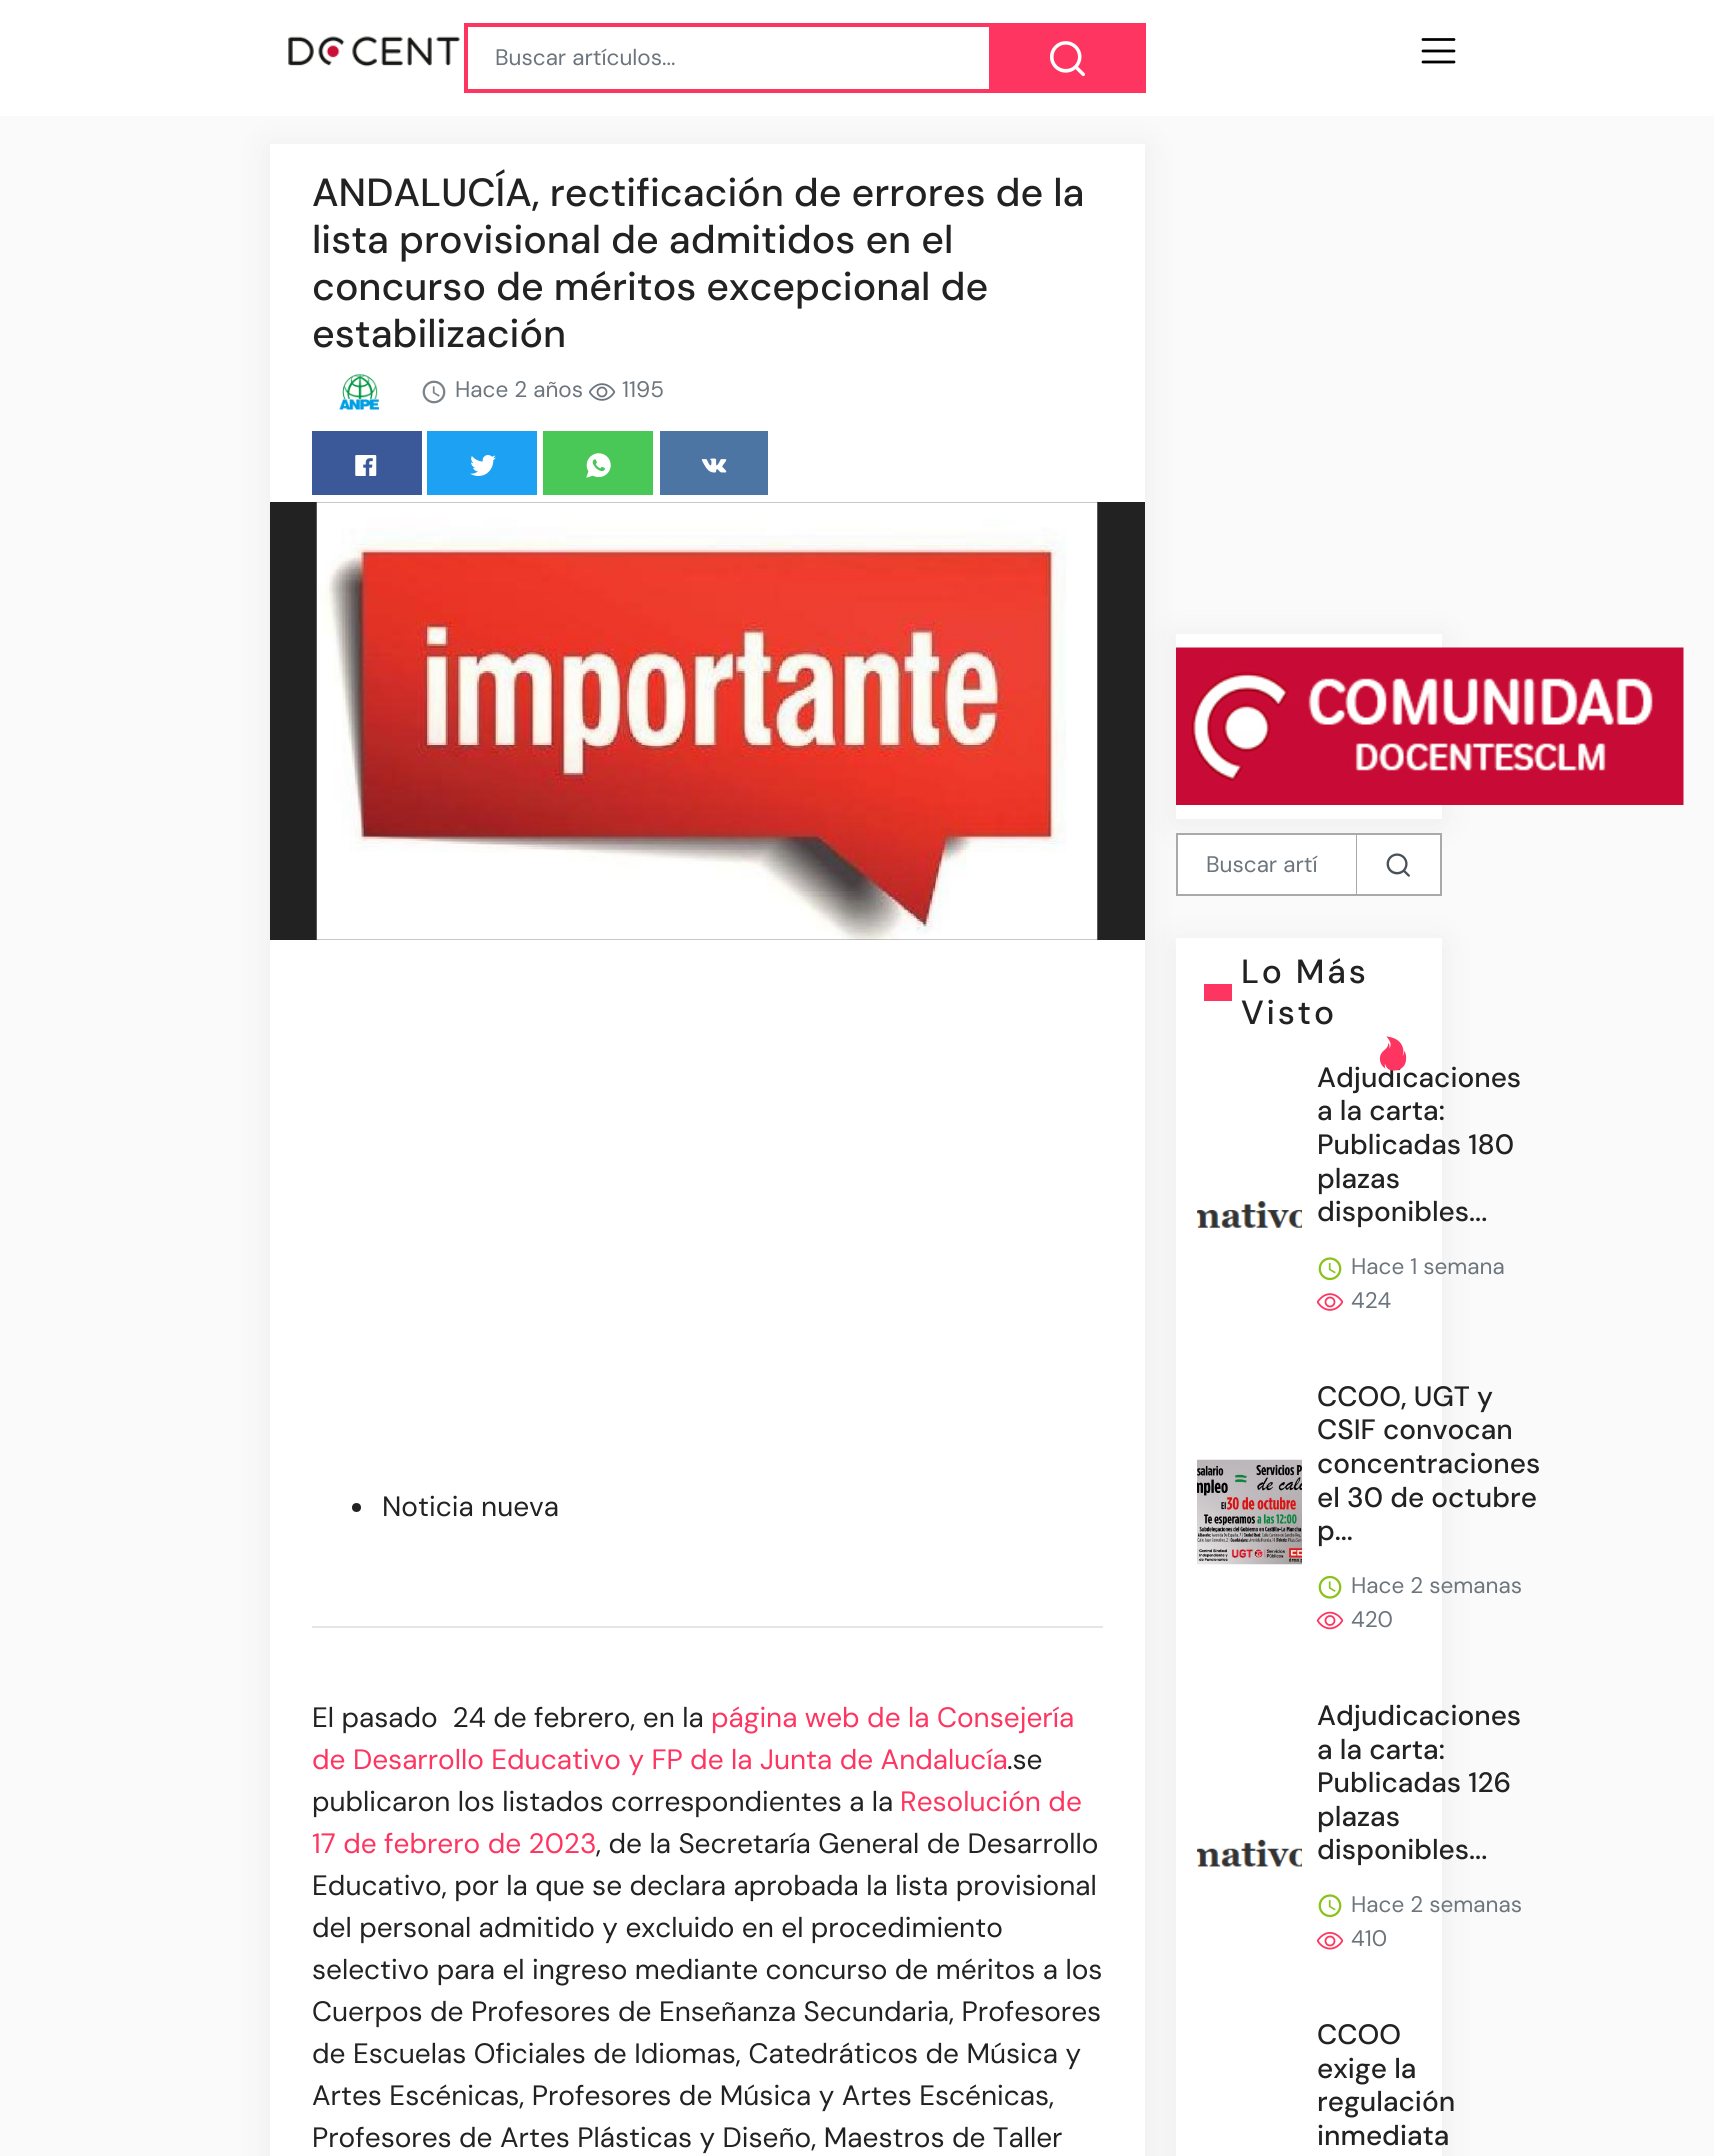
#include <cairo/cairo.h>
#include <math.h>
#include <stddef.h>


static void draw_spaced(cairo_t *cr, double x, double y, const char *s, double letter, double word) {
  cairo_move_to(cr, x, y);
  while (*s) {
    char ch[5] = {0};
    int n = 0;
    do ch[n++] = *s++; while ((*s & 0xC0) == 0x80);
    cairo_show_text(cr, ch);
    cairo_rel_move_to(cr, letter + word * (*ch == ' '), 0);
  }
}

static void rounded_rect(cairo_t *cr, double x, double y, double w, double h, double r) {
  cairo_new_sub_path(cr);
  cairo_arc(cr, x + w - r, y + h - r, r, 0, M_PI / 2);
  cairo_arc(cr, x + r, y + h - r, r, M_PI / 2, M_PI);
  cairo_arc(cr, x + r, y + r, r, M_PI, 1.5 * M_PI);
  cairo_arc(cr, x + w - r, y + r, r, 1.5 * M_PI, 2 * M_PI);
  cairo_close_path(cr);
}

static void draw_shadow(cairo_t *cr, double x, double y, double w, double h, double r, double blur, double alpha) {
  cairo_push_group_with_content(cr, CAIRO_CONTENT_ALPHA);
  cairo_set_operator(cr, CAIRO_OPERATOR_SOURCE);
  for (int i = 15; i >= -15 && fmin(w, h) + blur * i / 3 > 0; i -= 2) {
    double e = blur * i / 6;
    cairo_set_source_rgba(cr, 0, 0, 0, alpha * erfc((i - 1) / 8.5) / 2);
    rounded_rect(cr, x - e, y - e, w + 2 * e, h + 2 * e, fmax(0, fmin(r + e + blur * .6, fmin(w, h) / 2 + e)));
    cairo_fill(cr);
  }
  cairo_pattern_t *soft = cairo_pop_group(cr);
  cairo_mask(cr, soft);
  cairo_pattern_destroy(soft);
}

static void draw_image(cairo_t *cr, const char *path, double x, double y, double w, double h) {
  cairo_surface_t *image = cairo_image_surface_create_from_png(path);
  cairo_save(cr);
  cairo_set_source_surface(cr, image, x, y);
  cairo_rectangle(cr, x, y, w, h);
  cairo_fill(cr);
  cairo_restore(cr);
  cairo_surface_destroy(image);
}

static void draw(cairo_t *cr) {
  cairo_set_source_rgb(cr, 250 / 255.0, 250 / 255.0, 250 / 255.0);
  cairo_paint(cr);
  cairo_set_source_rgb(cr, 1, 1, 1);
  cairo_rectangle(cr, 0, 0, 1714, 116);
  cairo_fill(cr);
  draw_image(cr, "images/1.png", 288, 36, 172, 31);
  cairo_set_source_rgb(cr, 254 / 255.0, 53 / 255.0, 96 / 255.0);
  cairo_rectangle(cr, 464, 23, 527, 4);
  cairo_fill(cr);
  cairo_rectangle(cr, 464, 89, 527, 4);
  cairo_fill(cr);
  cairo_rectangle(cr, 464, 23, 4, 70);
  cairo_fill(cr);
  cairo_set_source_rgb(cr, 0, 0, 0);
  draw_shadow(cr, 270, 147, 875, 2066, 0, 19, 0.06);
  cairo_set_source_rgb(cr, 254 / 255.0, 53 / 255.0, 96 / 255.0);
  cairo_rectangle(cr, 989, 23, 157, 70);
  cairo_fill(cr);
  draw_image(cr, "images/2.png", 1050, 41, 35, 36);
  cairo_new_path(cr);
  cairo_move_to(cr, 1423, 39.5);
  cairo_line_to(cr, 1454, 39.5);
  cairo_move_to(cr, 1423, 51);
  cairo_line_to(cr, 1454, 51);
  cairo_move_to(cr, 1423, 62);
  cairo_line_to(cr, 1454, 62);
  cairo_set_source_rgb(cr, 0, 0, 0);
  cairo_set_line_width(cr, 2.8);
  cairo_set_line_cap(cr, CAIRO_LINE_CAP_ROUND);
  cairo_stroke(cr);
  cairo_set_source_rgb(cr, 1, 1, 1);
  cairo_rectangle(cr, 270, 144, 875, 2012);
  cairo_fill(cr);
  draw_image(cr, "images/3.png", 339, 374, 40, 36);
  draw_image(cr, "images/4.png", 422, 380, 24, 24);
  draw_image(cr, "images/5.png", 588, 383, 28, 18);
  cairo_set_source_rgb(cr, 59 / 255.0, 89 / 255.0, 152 / 255.0);
  cairo_rectangle(cr, 312, 431, 110, 64);
  cairo_fill(cr);
  draw_image(cr, "images/6.png", 355, 455, 22, 21);
  cairo_set_source_rgb(cr, 29 / 255.0, 161 / 255.0, 242 / 255.0);
  cairo_rectangle(cr, 427, 431, 110, 64);
  cairo_fill(cr);
  draw_image(cr, "images/7.png", 470, 455, 26, 21);
  cairo_set_source_rgb(cr, 74 / 255.0, 200 / 255.0, 87 / 255.0);
  cairo_rectangle(cr, 543, 431, 110, 64);
  cairo_fill(cr);
  draw_image(cr, "images/8.png", 586, 453, 25, 25);
  cairo_set_source_rgb(cr, 76 / 255.0, 117 / 255.0, 163 / 255.0);
  cairo_rectangle(cr, 660, 431, 108, 64);
  cairo_fill(cr);
  draw_image(cr, "images/9.png", 701, 458, 26, 15);
  cairo_set_source_rgb(cr, 34 / 255.0, 34 / 255.0, 34 / 255.0);
  cairo_rectangle(cr, 270, 502, 875, 438);
  cairo_fill(cr);
  draw_image(cr, "images/10.png", 316, 502, 782, 438);
  cairo_arc(cr, 356.5, 1507.5, 4.5, 0, 2 * M_PI);
  cairo_fill(cr);
  cairo_set_source_rgb(cr, 230 / 255.0, 230 / 255.0, 230 / 255.0);
  cairo_rectangle(cr, 312, 1626, 791, 2);
  cairo_fill(cr);
  cairo_set_source_rgb(cr, 0, 0, 0);
  draw_shadow(cr, 1176, 637, 266, 186, 0, 19, 0.06);
  cairo_set_source_rgb(cr, 1, 1, 1);
  cairo_rectangle(cr, 1176, 634, 266, 185);
  cairo_fill(cr);
  draw_image(cr, "images/11.png", 1176, 647, 508, 158);
  cairo_set_source_rgb(cr, 0, 0, 0);
  draw_shadow(cr, 1176, 942, 266, 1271, 0, 19, 0.06);
  cairo_set_source_rgb(cr, 1, 1, 1);
  cairo_rectangle(cr, 1356, 834, 85, 61);
  cairo_fill_preserve(cr);
  cairo_set_source_rgb(cr, 169 / 255.0, 169 / 255.0, 169 / 255.0);
  cairo_set_line_width(cr, 2);
  cairo_set_line_cap(cr, CAIRO_LINE_CAP_BUTT);
  cairo_stroke(cr);
  cairo_set_source_rgb(cr, 1, 1, 1);
  cairo_rectangle(cr, 1178, 835, 178, 59);
  cairo_fill(cr);
  cairo_set_source_rgb(cr, 169 / 255.0, 169 / 255.0, 169 / 255.0);
  cairo_rectangle(cr, 1176, 833, 180, 2);
  cairo_fill(cr);
  cairo_rectangle(cr, 1176, 894, 180, 2);
  cairo_fill(cr);
  cairo_rectangle(cr, 1176, 833, 2, 63);
  cairo_fill(cr);
  draw_image(cr, "images/12.png", 1386, 853, 24, 24);
  cairo_set_source_rgb(cr, 1, 1, 1);
  cairo_rectangle(cr, 1176, 938, 266, 1218);
  cairo_fill(cr);
  cairo_set_source_rgb(cr, 254 / 255.0, 53 / 255.0, 96 / 255.0);
  cairo_rectangle(cr, 1204, 984, 28, 17);
  cairo_fill(cr);
  draw_image(cr, "images/14.png", 1197, 1201, 105, 27);
  draw_image(cr, "images/15.png", 1318, 1257, 24, 24);
  draw_image(cr, "images/16.png", 1316, 1293, 28, 18);
  draw_image(cr, "images/17.png", 1197, 1459, 105, 106);
  draw_image(cr, "images/18.png", 1318, 1575, 24, 24);
  draw_image(cr, "images/19.png", 1316, 1611, 28, 19);
  draw_image(cr, "images/20.png", 1197, 1839, 105, 28);
  draw_image(cr, "images/15.png", 1318, 1894, 24, 24);
  draw_image(cr, "images/21.png", 1316, 1932, 28, 18);
  cairo_select_font_face(cr, "DM Sans", CAIRO_FONT_SLANT_NORMAL, CAIRO_FONT_WEIGHT_NORMAL);
  cairo_set_font_size(cr, 22.5);
  cairo_set_source_rgb(cr, 108 / 255.0, 117 / 255.0, 125 / 255.0);
  cairo_move_to(cr, 495, 65);
  cairo_show_text(cr, "Buscar artículos...");
  cairo_select_font_face(cr, "DM Sans Medium", CAIRO_FONT_SLANT_NORMAL, CAIRO_FONT_WEIGHT_NORMAL);
  cairo_set_font_size(cr, 39.25);
  cairo_set_source_rgb(cr, 34 / 255.0, 34 / 255.0, 34 / 255.0);
  cairo_move_to(cr, 312, 206);
  cairo_show_text(cr, "ANDALUCÍA, rectificación de errores de la");
  cairo_move_to(cr, 312, 253);
  cairo_show_text(cr, "lista provisional de admitidos en el");
  cairo_move_to(cr, 312, 300);
  cairo_show_text(cr, "concurso de méritos excepcional de");
  cairo_move_to(cr, 312, 347);
  cairo_show_text(cr, "estabilización");
  cairo_select_font_face(cr, "DM Sans", CAIRO_FONT_SLANT_NORMAL, CAIRO_FONT_WEIGHT_NORMAL);
  cairo_set_font_size(cr, 22.5);
  cairo_set_source_rgb(cr, 108 / 255.0, 117 / 255.0, 125 / 255.0);
  cairo_move_to(cr, 455, 397);
  cairo_show_text(cr, "Hace 2 años");
  cairo_move_to(cr, 622, 397);
  cairo_show_text(cr, "1195");
  cairo_set_font_size(cr, 28);
  cairo_set_source_rgb(cr, 34 / 255.0, 34 / 255.0, 34 / 255.0);
  cairo_move_to(cr, 382, 1516);
  cairo_show_text(cr, "Noticia nueva");
  cairo_move_to(cr, 312, 1727);
  cairo_show_text(cr, "El pasado  24 de febrero, en la");
  cairo_set_source_rgb(cr, 254 / 255.0, 53 / 255.0, 96 / 255.0);
  cairo_move_to(cr, 711, 1727);
  cairo_show_text(cr, "página web de la Consejería");
  cairo_move_to(cr, 312, 1769);
  cairo_show_text(cr, "de Desarrollo Educativo y FP de la Junta de Andalucía");
  cairo_set_source_rgb(cr, 34 / 255.0, 34 / 255.0, 34 / 255.0);
  cairo_move_to(cr, 1007, 1769);
  cairo_show_text(cr, ".se");
  cairo_move_to(cr, 312, 1811);
  cairo_show_text(cr, "publicaron los listados correspondientes a la");
  cairo_set_source_rgb(cr, 254 / 255.0, 53 / 255.0, 96 / 255.0);
  cairo_move_to(cr, 900, 1811);
  cairo_show_text(cr, "Resolución de");
  cairo_move_to(cr, 312, 1853);
  cairo_show_text(cr, "17 de febrero de 2023");
  cairo_set_source_rgb(cr, 34 / 255.0, 34 / 255.0, 34 / 255.0);
  cairo_move_to(cr, 596, 1853);
  cairo_show_text(cr, ", de la Secretaría General de Desarrollo");
  cairo_move_to(cr, 312, 1895);
  cairo_show_text(cr, "Educativo, por la que se declara aprobada la lista provisional");
  cairo_move_to(cr, 312, 1937);
  cairo_show_text(cr, "del personal admitido y excluido en el procedimiento");
  cairo_move_to(cr, 312, 1979);
  cairo_show_text(cr, "selectivo para el ingreso mediante concurso de méritos a los");
  cairo_move_to(cr, 312, 2021);
  cairo_show_text(cr, "Cuerpos de Profesores de Enseñanza Secundaria, Profesores");
  cairo_move_to(cr, 312, 2063);
  cairo_show_text(cr, "de Escuelas Oficiales de Idiomas, Catedráticos de Música y");
  cairo_move_to(cr, 312, 2105);
  cairo_show_text(cr, "Artes Escénicas, Profesores de Música y Artes Escénicas,");
  cairo_move_to(cr, 312, 2147);
  cairo_show_text(cr, "Profesores de Artes Plásticas y Diseño, Maestros de Taller");
  cairo_set_font_size(cr, 22.5);
  cairo_set_source_rgb(cr, 108 / 255.0, 117 / 255.0, 125 / 255.0);
  cairo_move_to(cr, 1206, 872);
  cairo_show_text(cr, "Buscar artí");
  cairo_select_font_face(cr, "DM Sans Medium", CAIRO_FONT_SLANT_NORMAL, CAIRO_FONT_WEIGHT_NORMAL);
  cairo_set_font_size(cr, 33.5);
  cairo_set_source_rgb(cr, 34 / 255.0, 34 / 255.0, 34 / 255.0);
  draw_spaced(cr, 1241, 983, "Lo Más", 2.75, 0);
  draw_spaced(cr, 1241, 1024, "Visto", 2.75, 0);
  cairo_set_font_size(cr, 28);
  cairo_move_to(cr, 1317, 1087);
  cairo_show_text(cr, "Adjudicaciones");
  draw_image(cr, "images/13.png", 1379, 1036, 28, 35);
  cairo_move_to(cr, 1317, 1120);
  cairo_show_text(cr, "a la carta:");
  cairo_move_to(cr, 1317, 1154);
  cairo_show_text(cr, "Publicadas 180");
  cairo_move_to(cr, 1317, 1188);
  cairo_show_text(cr, "plazas");
  cairo_move_to(cr, 1317, 1221);
  cairo_show_text(cr, "disponibles...");
  cairo_select_font_face(cr, "DM Sans", CAIRO_FONT_SLANT_NORMAL, CAIRO_FONT_WEIGHT_NORMAL);
  cairo_set_font_size(cr, 22.5);
  cairo_set_source_rgb(cr, 108 / 255.0, 117 / 255.0, 125 / 255.0);
  cairo_move_to(cr, 1351, 1274);
  cairo_show_text(cr, "Hace 1 semana");
  cairo_move_to(cr, 1351, 1308);
  cairo_show_text(cr, "424");
  cairo_select_font_face(cr, "DM Sans Medium", CAIRO_FONT_SLANT_NORMAL, CAIRO_FONT_WEIGHT_NORMAL);
  cairo_set_font_size(cr, 28);
  cairo_set_source_rgb(cr, 34 / 255.0, 34 / 255.0, 34 / 255.0);
  cairo_move_to(cr, 1317, 1406);
  cairo_show_text(cr, "CCOO, UGT y");
  cairo_move_to(cr, 1317, 1439);
  cairo_show_text(cr, "CSIF convocan");
  cairo_move_to(cr, 1317, 1473);
  cairo_show_text(cr, "concentraciones");
  cairo_move_to(cr, 1317, 1507);
  cairo_show_text(cr, "el 30 de octubre");
  cairo_move_to(cr, 1317, 1540);
  cairo_show_text(cr, "p...");
  cairo_select_font_face(cr, "DM Sans", CAIRO_FONT_SLANT_NORMAL, CAIRO_FONT_WEIGHT_NORMAL);
  cairo_set_font_size(cr, 22.5);
  cairo_set_source_rgb(cr, 108 / 255.0, 117 / 255.0, 125 / 255.0);
  cairo_move_to(cr, 1351, 1593);
  cairo_show_text(cr, "Hace 2 semanas");
  cairo_move_to(cr, 1351, 1627);
  cairo_show_text(cr, "420");
  cairo_select_font_face(cr, "DM Sans Medium", CAIRO_FONT_SLANT_NORMAL, CAIRO_FONT_WEIGHT_NORMAL);
  cairo_set_font_size(cr, 28);
  cairo_set_source_rgb(cr, 34 / 255.0, 34 / 255.0, 34 / 255.0);
  cairo_move_to(cr, 1317, 1725);
  cairo_show_text(cr, "Adjudicaciones");
  cairo_move_to(cr, 1317, 1759);
  cairo_show_text(cr, "a la carta:");
  cairo_move_to(cr, 1317, 1792);
  cairo_show_text(cr, "Publicadas 126");
  cairo_move_to(cr, 1317, 1826);
  cairo_show_text(cr, "plazas");
  cairo_move_to(cr, 1317, 1859);
  cairo_show_text(cr, "disponibles...");
  cairo_select_font_face(cr, "DM Sans", CAIRO_FONT_SLANT_NORMAL, CAIRO_FONT_WEIGHT_NORMAL);
  cairo_set_font_size(cr, 22.5);
  cairo_set_source_rgb(cr, 108 / 255.0, 117 / 255.0, 125 / 255.0);
  cairo_move_to(cr, 1351, 1912);
  cairo_show_text(cr, "Hace 2 semanas");
  cairo_move_to(cr, 1351, 1946);
  cairo_show_text(cr, "410");
  cairo_select_font_face(cr, "DM Sans Medium", CAIRO_FONT_SLANT_NORMAL, CAIRO_FONT_WEIGHT_NORMAL);
  cairo_set_font_size(cr, 28);
  cairo_set_source_rgb(cr, 34 / 255.0, 34 / 255.0, 34 / 255.0);
  cairo_move_to(cr, 1317, 2044);
  cairo_show_text(cr, "CCOO");
  cairo_move_to(cr, 1317, 2078);
  cairo_show_text(cr, "exige la");
  cairo_move_to(cr, 1317, 2111);
  cairo_show_text(cr, "regulación");
  cairo_move_to(cr, 1317, 2145);
  cairo_show_text(cr, "inmediata");
}

int main(void) {
  cairo_surface_t *surface = cairo_image_surface_create(CAIRO_FORMAT_RGB24, 1714, 2156);
  cairo_t *cr = cairo_create(surface);
  cairo_font_options_t *options = cairo_font_options_create();
  cairo_font_options_set_hint_metrics(options, CAIRO_HINT_METRICS_OFF);
  cairo_font_options_set_hint_style(options, CAIRO_HINT_STYLE_NONE);
  cairo_set_font_options(cr, options);
  cairo_set_miter_limit(cr, 4);
  draw(cr);
  cairo_surface_write_to_png(surface, "out.png");
  cairo_font_options_destroy(options);
  cairo_destroy(cr);
  cairo_surface_destroy(surface);
  return 0;
}
